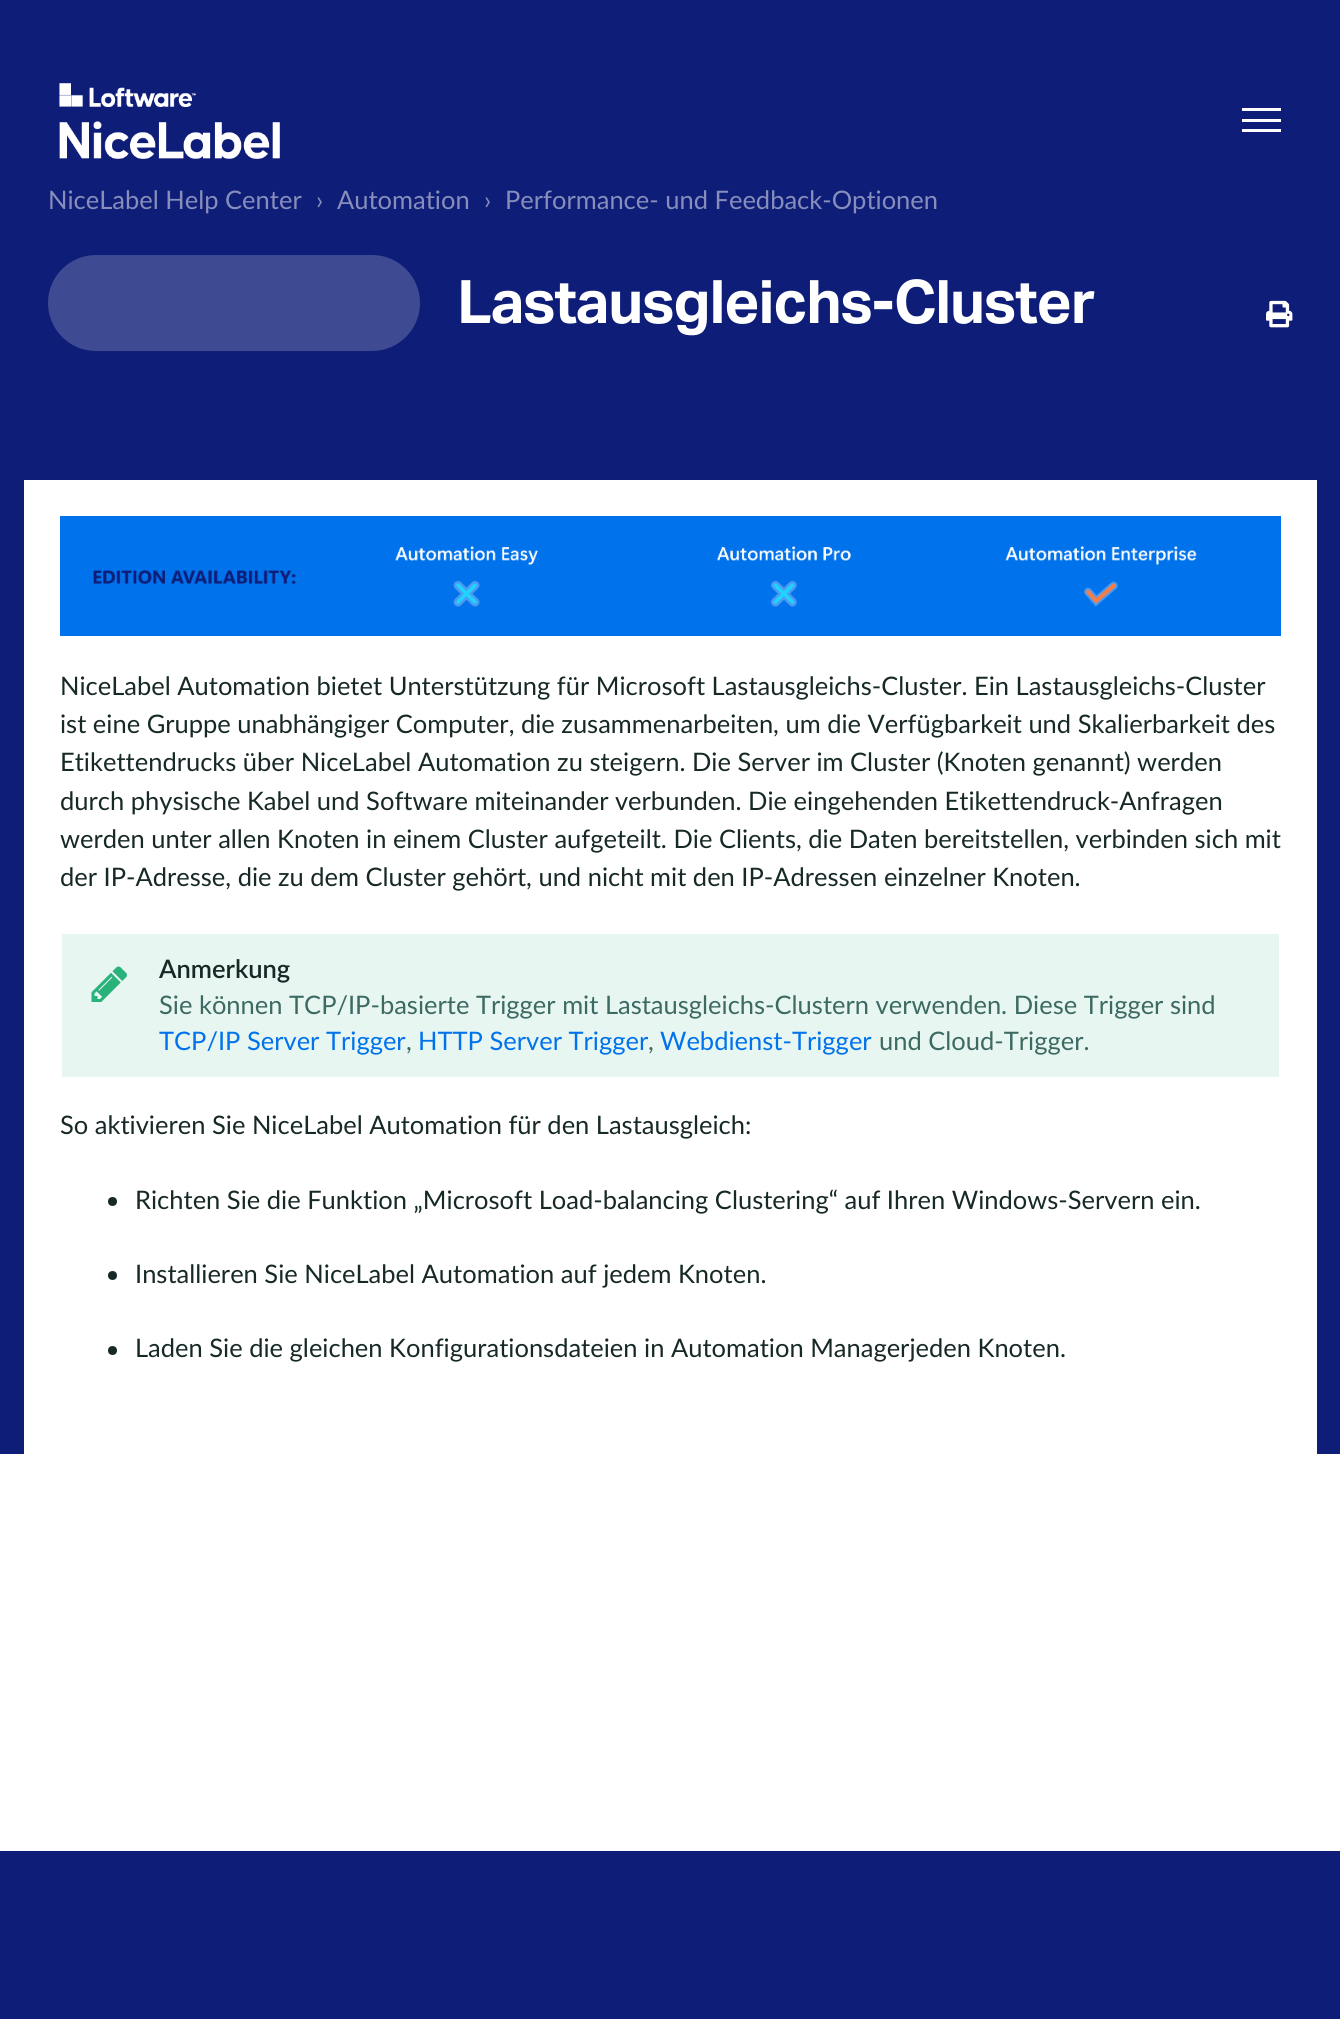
#include <cairo/cairo.h>
#include <math.h>
#include <stddef.h>


static void draw_spaced(cairo_t *cr, double x, double y, const char *s, double letter, double word) {
  cairo_move_to(cr, x, y);
  while (*s) {
    char ch[5] = {0};
    int n = 0;
    do ch[n++] = *s++; while ((*s & 0xC0) == 0x80);
    cairo_show_text(cr, ch);
    cairo_rel_move_to(cr, letter + word * (*ch == ' '), 0);
  }
}

static void rounded_rect(cairo_t *cr, double x, double y, double w, double h, double r) {
  cairo_new_sub_path(cr);
  cairo_arc(cr, x + w - r, y + h - r, r, 0, M_PI / 2);
  cairo_arc(cr, x + r, y + h - r, r, M_PI / 2, M_PI);
  cairo_arc(cr, x + r, y + r, r, M_PI, 1.5 * M_PI);
  cairo_arc(cr, x + w - r, y + r, r, 1.5 * M_PI, 2 * M_PI);
  cairo_close_path(cr);
}

static void draw_image(cairo_t *cr, const char *path, double x, double y, double w, double h) {
  cairo_surface_t *image = cairo_image_surface_create_from_png(path);
  cairo_save(cr);
  cairo_set_source_surface(cr, image, x, y);
  cairo_rectangle(cr, x, y, w, h);
  cairo_fill(cr);
  cairo_restore(cr);
  cairo_surface_destroy(image);
}

static void draw(cairo_t *cr) {
  cairo_set_source_rgb(cr, 1, 1, 1);
  cairo_paint(cr);
  cairo_set_source_rgb(cr, 14 / 255.0, 29 / 255.0, 119 / 255.0);
  cairo_rectangle(cr, 0, 0, 1340, 399);
  cairo_fill(cr);
  draw_image(cr, "images/1.png", 59, 83, 221, 76);
  cairo_set_source_rgb(cr, 1, 1, 1);
  cairo_rectangle(cr, 1242, 119, 39, 3);
  cairo_fill(cr);
  cairo_rectangle(cr, 1242, 108, 39, 3);
  cairo_fill(cr);
  cairo_rectangle(cr, 1242, 129, 39, 3);
  cairo_fill(cr);
  cairo_set_source_rgb(cr, 62 / 255.0, 74 / 255.0, 146 / 255.0);
  rounded_rect(cr, 48, 255, 372, 96, 48);
  cairo_fill(cr);
  draw_image(cr, "images/2.png", 1266, 300, 27, 28);
  cairo_set_source_rgba(cr, 14 / 255.0, 29 / 255.0, 119 / 255.0, 0.05);
  cairo_new_path(cr);
  cairo_move_to(cr, 0, 398);
  cairo_line_to(cr, 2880, 398);
  cairo_line_to(cr, 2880, 524);
  cairo_close_path(cr);
  cairo_fill(cr);
  cairo_set_source_rgba(cr, 14 / 255.0, 29 / 255.0, 119 / 255.0, 0.1);
  cairo_new_path(cr);
  cairo_move_to(cr, 0, 398);
  cairo_line_to(cr, 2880, 398);
  cairo_line_to(cr, 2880, 388);
  cairo_line_to(cr, 0, 452);
  cairo_close_path(cr);
  cairo_fill(cr);
  cairo_set_source_rgb(cr, 14 / 255.0, 29 / 255.0, 119 / 255.0);
  cairo_rectangle(cr, 0, 399, 1340, 1055);
  cairo_fill(cr);
  cairo_set_source_rgb(cr, 1, 1, 1);
  cairo_rectangle(cr, 24, 480, 1293, 974);
  cairo_fill(cr);
  draw_image(cr, "images/3.png", 60, 516, 1221, 120);
  cairo_set_source_rgb(cr, 231 / 255.0, 246 / 255.0, 240 / 255.0);
  cairo_rectangle(cr, 62, 934, 1217, 143);
  cairo_fill(cr);
  draw_image(cr, "images/4.png", 91, 966, 36, 36);
  cairo_set_source_rgb(cr, 23 / 255.0, 41 / 255.0, 38 / 255.0);
  cairo_arc(cr, 112.5, 1201.5, 4.5, 0, 2 * M_PI);
  cairo_fill(cr);
  cairo_arc(cr, 112.5, 1275.5, 4.5, 0, 2 * M_PI);
  cairo_fill(cr);
  cairo_arc(cr, 112.5, 1350.5, 4.5, 0, 2 * M_PI);
  cairo_fill(cr);
  cairo_set_source_rgb(cr, 14 / 255.0, 29 / 255.0, 119 / 255.0);
  cairo_rectangle(cr, 0, 1851, 1340, 168);
  cairo_fill(cr);
  cairo_select_font_face(cr, "Lato", CAIRO_FONT_SLANT_NORMAL, CAIRO_FONT_WEIGHT_NORMAL);
  cairo_set_font_size(cr, 25.5);
  cairo_set_source_rgb(cr, 135 / 255.0, 142 / 255.0, 187 / 255.0);
  cairo_move_to(cr, 48, 209);
  cairo_show_text(cr, "NiceLabel Help Center");
  cairo_move_to(cr, 316, 209);
  cairo_show_text(cr, "›");
  cairo_move_to(cr, 337, 209);
  cairo_show_text(cr, "Automation");
  cairo_move_to(cr, 484, 209);
  cairo_show_text(cr, "›");
  cairo_move_to(cr, 505, 209);
  cairo_show_text(cr, "Performance- und Feedback-Optionen");
  cairo_select_font_face(cr, "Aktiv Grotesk", CAIRO_FONT_SLANT_NORMAL, CAIRO_FONT_WEIGHT_BOLD);
  cairo_set_font_size(cr, 60);
  cairo_set_source_rgb(cr, 1, 1, 1);
  draw_spaced(cr, 457, 323, "Lastausgleichs-Cluster", -1.2, 0);
  cairo_select_font_face(cr, "Lato", CAIRO_FONT_SLANT_NORMAL, CAIRO_FONT_WEIGHT_NORMAL);
  cairo_set_font_size(cr, 25.5);
  cairo_set_source_rgb(cr, 23 / 255.0, 41 / 255.0, 38 / 255.0);
  cairo_move_to(cr, 60, 695);
  cairo_show_text(cr, "NiceLabel Automation bietet Unterstützung für Microsoft Lastausgleichs-Cluster. Ein Lastausgleichs-Cluster");
  cairo_move_to(cr, 60, 733);
  cairo_show_text(cr, "ist eine Gruppe unabhängiger Computer, die zusammenarbeiten, um die Verfügbarkeit und Skalierbarkeit des");
  cairo_move_to(cr, 60, 771);
  cairo_show_text(cr, "Etikettendrucks über NiceLabel Automation zu steigern. Die Server im Cluster (Knoten genannt) werden");
  cairo_move_to(cr, 60, 810);
  cairo_show_text(cr, "durch physische Kabel und Software miteinander verbunden. Die eingehenden Etikettendruck-Anfragen");
  cairo_move_to(cr, 60, 848);
  cairo_show_text(cr, "werden unter allen Knoten in einem Cluster aufgeteilt. Die Clients, die Daten bereitstellen, verbinden sich mit");
  cairo_move_to(cr, 60, 886);
  cairo_show_text(cr, "der IP-Adresse, die zu dem Cluster gehört, und nicht mit den IP-Adressen einzelner Knoten.");
  cairo_select_font_face(cr, "Lato SemiBold", CAIRO_FONT_SLANT_NORMAL, CAIRO_FONT_WEIGHT_NORMAL);
  cairo_move_to(cr, 159, 978);
  cairo_show_text(cr, "Anmerkung");
  cairo_select_font_face(cr, "Lato", CAIRO_FONT_SLANT_NORMAL, CAIRO_FONT_WEIGHT_NORMAL);
  cairo_set_source_rgb(cr, 60 / 255.0, 106 / 255.0, 99 / 255.0);
  cairo_move_to(cr, 159, 1014);
  cairo_show_text(cr, "Sie können TCP/IP-basierte Trigger mit Lastausgleichs-Clustern verwenden. Diese Trigger sind");
  cairo_set_source_rgb(cr, 0, 114 / 255.0, 235 / 255.0);
  cairo_move_to(cr, 159, 1050);
  cairo_show_text(cr, "TCP/IP Server Trigger");
  cairo_set_source_rgb(cr, 60 / 255.0, 106 / 255.0, 99 / 255.0);
  cairo_move_to(cr, 406, 1050);
  cairo_show_text(cr, ",");
  cairo_set_source_rgb(cr, 0, 114 / 255.0, 235 / 255.0);
  cairo_move_to(cr, 418, 1050);
  cairo_show_text(cr, "HTTP Server Trigger");
  cairo_set_source_rgb(cr, 60 / 255.0, 106 / 255.0, 99 / 255.0);
  cairo_move_to(cr, 648, 1050);
  cairo_show_text(cr, ",");
  cairo_set_source_rgb(cr, 0, 114 / 255.0, 235 / 255.0);
  cairo_move_to(cr, 660, 1050);
  cairo_show_text(cr, "Webdienst-Trigger");
  cairo_set_source_rgb(cr, 60 / 255.0, 106 / 255.0, 99 / 255.0);
  cairo_move_to(cr, 879, 1050);
  cairo_show_text(cr, "und Cloud-Trigger.");
  cairo_set_source_rgb(cr, 23 / 255.0, 41 / 255.0, 38 / 255.0);
  cairo_move_to(cr, 60, 1134);
  cairo_show_text(cr, "So aktivieren Sie NiceLabel Automation für den Lastausgleich:");
  cairo_move_to(cr, 135, 1209);
  cairo_show_text(cr, "Richten Sie die Funktion „Microsoft Load-balancing Clustering“ auf Ihren Windows-Servern ein.");
  cairo_move_to(cr, 135, 1283);
  cairo_show_text(cr, "Installieren Sie NiceLabel Automation auf jedem Knoten.");
  cairo_move_to(cr, 135, 1357);
  cairo_show_text(cr, "Laden Sie die gleichen Konfigurationsdateien in Automation Managerjeden Knoten.");
}

int main(void) {
  cairo_surface_t *surface = cairo_image_surface_create(CAIRO_FORMAT_RGB24, 1340, 2019);
  cairo_t *cr = cairo_create(surface);
  cairo_font_options_t *options = cairo_font_options_create();
  cairo_font_options_set_hint_metrics(options, CAIRO_HINT_METRICS_OFF);
  cairo_font_options_set_hint_style(options, CAIRO_HINT_STYLE_NONE);
  cairo_set_font_options(cr, options);
  cairo_set_miter_limit(cr, 4);
  draw(cr);
  cairo_surface_write_to_png(surface, "out.png");
  cairo_font_options_destroy(options);
  cairo_destroy(cr);
  cairo_surface_destroy(surface);
  return 0;
}
